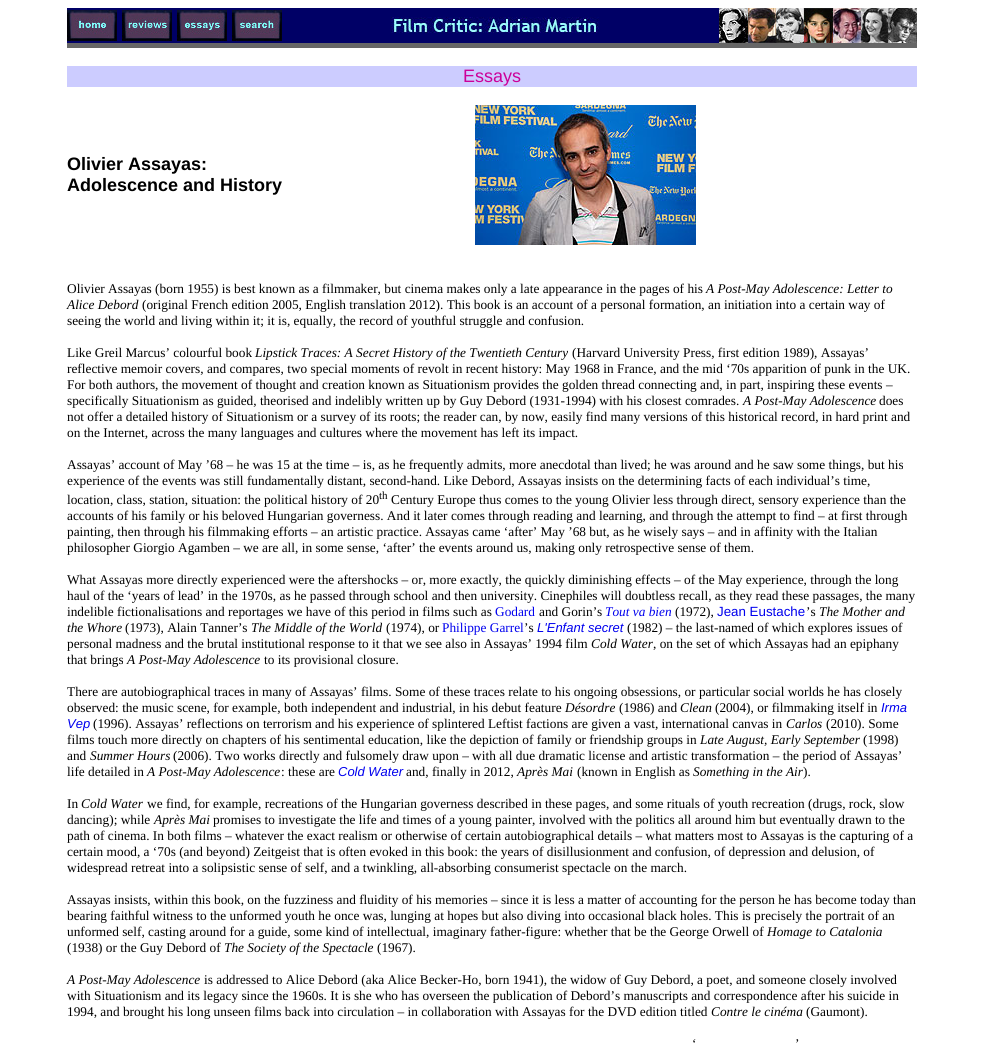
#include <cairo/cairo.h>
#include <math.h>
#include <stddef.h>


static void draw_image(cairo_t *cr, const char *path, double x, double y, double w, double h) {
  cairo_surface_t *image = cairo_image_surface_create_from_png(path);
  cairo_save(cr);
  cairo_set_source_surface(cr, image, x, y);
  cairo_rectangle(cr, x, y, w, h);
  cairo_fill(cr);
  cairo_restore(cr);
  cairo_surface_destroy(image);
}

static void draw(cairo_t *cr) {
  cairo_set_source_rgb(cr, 1, 1, 1);
  cairo_paint(cr);
  cairo_set_source_rgb(cr, 0, 0, 102 / 255.0);
  cairo_rectangle(cr, 67, 8, 652, 35);
  cairo_fill(cr);
  draw_image(cr, "images/1.png", 67, 10, 50, 31);
  draw_image(cr, "images/2.png", 122, 10, 50, 31);
  draw_image(cr, "images/3.png", 177, 10, 50, 31);
  draw_image(cr, "images/4.png", 232, 10, 50, 31);
  draw_image(cr, "images/5.png", 391, 17, 208, 16);
  draw_image(cr, "images/6.png", 719, 8, 198, 35);
  cairo_set_source_rgb(cr, 102 / 255.0, 102 / 255.0, 102 / 255.0);
  cairo_rectangle(cr, 67, 43, 850, 5);
  cairo_fill(cr);
  cairo_set_source_rgb(cr, 204 / 255.0, 204 / 255.0, 1);
  cairo_rectangle(cr, 67, 66, 850, 21);
  cairo_fill(cr);
  draw_image(cr, "images/7.png", 475, 105, 221, 140);
  cairo_select_font_face(cr, "Liberation Sans", CAIRO_FONT_SLANT_NORMAL, CAIRO_FONT_WEIGHT_NORMAL);
  cairo_set_font_size(cr, 18);
  cairo_set_source_rgb(cr, 204 / 255.0, 0, 153 / 255.0);
  cairo_move_to(cr, 463, 82);
  cairo_show_text(cr, "Essays");
  cairo_select_font_face(cr, "Liberation Sans", CAIRO_FONT_SLANT_NORMAL, CAIRO_FONT_WEIGHT_BOLD);
  cairo_set_source_rgb(cr, 0, 0, 0);
  cairo_move_to(cr, 67, 170);
  cairo_show_text(cr, "Olivier Assayas:");
  cairo_move_to(cr, 67, 191);
  cairo_show_text(cr, "Adolescence and History");
  cairo_select_font_face(cr, "Liberation Serif", CAIRO_FONT_SLANT_NORMAL, CAIRO_FONT_WEIGHT_NORMAL);
  cairo_set_font_size(cr, 13.33);
  cairo_move_to(cr, 67, 293);
  cairo_show_text(cr, "Olivier Assayas (born 1955) is best known as a filmmaker, but cinema makes only a late appearance in the pages of his");
  cairo_select_font_face(cr, "Liberation Serif", CAIRO_FONT_SLANT_ITALIC, CAIRO_FONT_WEIGHT_NORMAL);
  cairo_move_to(cr, 706, 293);
  cairo_show_text(cr, "A Post-May Adolescence: Letter to");
  cairo_move_to(cr, 67, 309);
  cairo_show_text(cr, "Alice Debord");
  cairo_select_font_face(cr, "Liberation Serif", CAIRO_FONT_SLANT_NORMAL, CAIRO_FONT_WEIGHT_NORMAL);
  cairo_move_to(cr, 142, 309);
  cairo_show_text(cr, "(original French edition 2005, English translation 2012). This book is an account of a personal formation, an initiation into a certain way of");
  cairo_move_to(cr, 67, 325);
  cairo_show_text(cr, "seeing the world and living within it; it is, equally, the record of youthful struggle and confusion.");
  cairo_move_to(cr, 67, 357);
  cairo_show_text(cr, "Like Greil Marcus’ colourful book");
  cairo_select_font_face(cr, "Liberation Serif", CAIRO_FONT_SLANT_ITALIC, CAIRO_FONT_WEIGHT_NORMAL);
  cairo_move_to(cr, 255, 357);
  cairo_show_text(cr, "Lipstick Traces: A Secret History of the Twentieth Century");
  cairo_select_font_face(cr, "Liberation Serif", CAIRO_FONT_SLANT_NORMAL, CAIRO_FONT_WEIGHT_NORMAL);
  cairo_move_to(cr, 572, 357);
  cairo_show_text(cr, "(Harvard University Press, first edition 1989), Assayas’");
  cairo_move_to(cr, 67, 373);
  cairo_show_text(cr, "reflective memoir covers, and compares, two special moments of revolt in recent history: May 1968 in France, and the mid ‘70s apparition of punk in the UK.");
  cairo_move_to(cr, 67, 389);
  cairo_show_text(cr, "For both authors, the movement of thought and creation known as Situationism provides the golden thread connecting and, in part, inspiring these events –");
  cairo_move_to(cr, 67, 405);
  cairo_show_text(cr, "specifically Situationism as guided, theorised and indelibly written up by Guy Debord (1931-1994) with his closest comrades.");
  cairo_select_font_face(cr, "Liberation Serif", CAIRO_FONT_SLANT_ITALIC, CAIRO_FONT_WEIGHT_NORMAL);
  cairo_move_to(cr, 743, 405);
  cairo_show_text(cr, "A Post-May Adolescence");
  cairo_select_font_face(cr, "Liberation Serif", CAIRO_FONT_SLANT_NORMAL, CAIRO_FONT_WEIGHT_NORMAL);
  cairo_move_to(cr, 879, 405);
  cairo_show_text(cr, "does");
  cairo_move_to(cr, 67, 421);
  cairo_show_text(cr, "not offer a detailed history of Situationism or a survey of its roots; the reader can, by now, easily find many versions of this historical record, in hard print and");
  cairo_move_to(cr, 67, 437);
  cairo_show_text(cr, "on the Internet, across the many languages and cultures where the movement has left its impact.");
  cairo_move_to(cr, 67, 469);
  cairo_show_text(cr, "Assayas’ account of May ’68 – he was 15 at the time – is, as he frequently admits, more anecdotal than lived; he was around and he saw some things, but his");
  cairo_move_to(cr, 67, 485);
  cairo_show_text(cr, "experience of the events was still fundamentally distant, second-hand. Like Debord, Assayas insists on the determining facts of each individual’s time,");
  cairo_move_to(cr, 67, 504);
  cairo_show_text(cr, "location, class, station, situation: the political history of 20");
  cairo_set_font_size(cr, 11);
  cairo_move_to(cr, 379, 499);
  cairo_show_text(cr, "th");
  cairo_set_font_size(cr, 13.33);
  cairo_move_to(cr, 391, 504);
  cairo_show_text(cr, "Century Europe thus comes to the young Olivier less through direct, sensory experience than the");
  cairo_move_to(cr, 67, 520);
  cairo_show_text(cr, "accounts of his family or his beloved Hungarian governess. And it later comes through reading and learning, and through the attempt to find – at first through");
  cairo_move_to(cr, 67, 536);
  cairo_show_text(cr, "painting, then through his filmmaking efforts – an artistic practice. Assayas came ‘after’ May ’68 but, as he wisely says – and in affinity with the Italian");
  cairo_move_to(cr, 67, 552);
  cairo_show_text(cr, "philosopher Giorgio Agamben – we are all, in some sense, ‘after’ the events around us, making only retrospective sense of them.");
  cairo_move_to(cr, 67, 584);
  cairo_show_text(cr, "What Assayas more directly experienced were the aftershocks – or, more exactly, the quickly diminishing effects – of the May experience, through the long");
  cairo_move_to(cr, 67, 600);
  cairo_show_text(cr, "haul of the ‘years of lead’ in the 1970s, as he passed through school and then university. Cinephiles will doubtless recall, as they read these passages, the many");
  cairo_move_to(cr, 67, 616);
  cairo_show_text(cr, "indelible fictionalisations and reportages we have of this period in films such as");
  cairo_set_source_rgb(cr, 0, 0, 238 / 255.0);
  cairo_move_to(cr, 495, 616);
  cairo_show_text(cr, "Godard");
  cairo_set_source_rgb(cr, 0, 0, 0);
  cairo_move_to(cr, 539, 616);
  cairo_show_text(cr, "and Gorin’s");
  cairo_select_font_face(cr, "Liberation Serif", CAIRO_FONT_SLANT_ITALIC, CAIRO_FONT_WEIGHT_NORMAL);
  cairo_set_source_rgb(cr, 0, 0, 238 / 255.0);
  cairo_move_to(cr, 605, 616);
  cairo_show_text(cr, "Tout va bien");
  cairo_select_font_face(cr, "Liberation Serif", CAIRO_FONT_SLANT_NORMAL, CAIRO_FONT_WEIGHT_NORMAL);
  cairo_set_source_rgb(cr, 0, 0, 0);
  cairo_move_to(cr, 675, 616);
  cairo_show_text(cr, "(1972),");
  cairo_select_font_face(cr, "Liberation Sans", CAIRO_FONT_SLANT_NORMAL, CAIRO_FONT_WEIGHT_NORMAL);
  cairo_set_source_rgb(cr, 0, 0, 238 / 255.0);
  cairo_move_to(cr, 717, 616);
  cairo_show_text(cr, "Jean Eustache");
  cairo_select_font_face(cr, "Liberation Serif", CAIRO_FONT_SLANT_NORMAL, CAIRO_FONT_WEIGHT_NORMAL);
  cairo_set_source_rgb(cr, 0, 0, 0);
  cairo_move_to(cr, 806, 616);
  cairo_show_text(cr, "’s");
  cairo_select_font_face(cr, "Liberation Serif", CAIRO_FONT_SLANT_ITALIC, CAIRO_FONT_WEIGHT_NORMAL);
  cairo_move_to(cr, 819, 616);
  cairo_show_text(cr, "The Mother and");
  cairo_move_to(cr, 67, 632);
  cairo_show_text(cr, "the Whore");
  cairo_select_font_face(cr, "Liberation Serif", CAIRO_FONT_SLANT_NORMAL, CAIRO_FONT_WEIGHT_NORMAL);
  cairo_move_to(cr, 125, 632);
  cairo_show_text(cr, "(1973), Alain Tanner’s");
  cairo_select_font_face(cr, "Liberation Serif", CAIRO_FONT_SLANT_ITALIC, CAIRO_FONT_WEIGHT_NORMAL);
  cairo_move_to(cr, 251, 632);
  cairo_show_text(cr, "The Middle of the World");
  cairo_select_font_face(cr, "Liberation Serif", CAIRO_FONT_SLANT_NORMAL, CAIRO_FONT_WEIGHT_NORMAL);
  cairo_move_to(cr, 386, 632);
  cairo_show_text(cr, "(1974), or");
  cairo_set_source_rgb(cr, 0, 0, 238 / 255.0);
  cairo_move_to(cr, 442, 632);
  cairo_show_text(cr, "Philippe Garrel");
  cairo_set_source_rgb(cr, 0, 0, 0);
  cairo_move_to(cr, 524, 632);
  cairo_show_text(cr, "’s");
  cairo_select_font_face(cr, "Liberation Sans", CAIRO_FONT_SLANT_ITALIC, CAIRO_FONT_WEIGHT_NORMAL);
  cairo_set_font_size(cr, 13);
  cairo_set_source_rgb(cr, 0, 0, 238 / 255.0);
  cairo_move_to(cr, 537, 632);
  cairo_show_text(cr, "L'Enfant secret");
  cairo_select_font_face(cr, "Liberation Serif", CAIRO_FONT_SLANT_NORMAL, CAIRO_FONT_WEIGHT_NORMAL);
  cairo_set_font_size(cr, 13.33);
  cairo_set_source_rgb(cr, 0, 0, 0);
  cairo_move_to(cr, 627, 632);
  cairo_show_text(cr, "(1982) – the last-named of which explores issues of");
  cairo_move_to(cr, 67, 648);
  cairo_show_text(cr, "personal madness and the brutal institutional response to it that we see also in Assayas’ 1994 film");
  cairo_select_font_face(cr, "Liberation Serif", CAIRO_FONT_SLANT_ITALIC, CAIRO_FONT_WEIGHT_NORMAL);
  cairo_move_to(cr, 591, 648);
  cairo_show_text(cr, "Cold Water");
  cairo_select_font_face(cr, "Liberation Serif", CAIRO_FONT_SLANT_NORMAL, CAIRO_FONT_WEIGHT_NORMAL);
  cairo_move_to(cr, 653, 648);
  cairo_show_text(cr, ", on the set of which Assayas had an epiphany");
  cairo_move_to(cr, 67, 664);
  cairo_show_text(cr, "that brings");
  cairo_select_font_face(cr, "Liberation Serif", CAIRO_FONT_SLANT_ITALIC, CAIRO_FONT_WEIGHT_NORMAL);
  cairo_move_to(cr, 127, 664);
  cairo_show_text(cr, "A Post-May Adolescence");
  cairo_select_font_face(cr, "Liberation Serif", CAIRO_FONT_SLANT_NORMAL, CAIRO_FONT_WEIGHT_NORMAL);
  cairo_move_to(cr, 264, 664);
  cairo_show_text(cr, "to its provisional closure.");
  cairo_move_to(cr, 67, 696);
  cairo_show_text(cr, "There are autobiographical traces in many of Assayas’ films. Some of these traces relate to his ongoing obsessions, or particular social worlds he has closely");
  cairo_move_to(cr, 67, 712);
  cairo_show_text(cr, "observed: the music scene, for example, both independent and industrial, in his debut feature");
  cairo_select_font_face(cr, "Liberation Serif", CAIRO_FONT_SLANT_ITALIC, CAIRO_FONT_WEIGHT_NORMAL);
  cairo_move_to(cr, 565, 712);
  cairo_show_text(cr, "Désordre");
  cairo_select_font_face(cr, "Liberation Serif", CAIRO_FONT_SLANT_NORMAL, CAIRO_FONT_WEIGHT_NORMAL);
  cairo_move_to(cr, 619, 712);
  cairo_show_text(cr, "(1986) and");
  cairo_select_font_face(cr, "Liberation Serif", CAIRO_FONT_SLANT_ITALIC, CAIRO_FONT_WEIGHT_NORMAL);
  cairo_move_to(cr, 680, 712);
  cairo_show_text(cr, "Clean");
  cairo_select_font_face(cr, "Liberation Serif", CAIRO_FONT_SLANT_NORMAL, CAIRO_FONT_WEIGHT_NORMAL);
  cairo_move_to(cr, 715, 712);
  cairo_show_text(cr, "(2004), or filmmaking itself in");
  cairo_select_font_face(cr, "Liberation Sans", CAIRO_FONT_SLANT_ITALIC, CAIRO_FONT_WEIGHT_NORMAL);
  cairo_set_font_size(cr, 13);
  cairo_set_source_rgb(cr, 0, 0, 238 / 255.0);
  cairo_move_to(cr, 881, 712);
  cairo_show_text(cr, "Irma");
  cairo_move_to(cr, 67, 728);
  cairo_show_text(cr, "Vep");
  cairo_select_font_face(cr, "Liberation Serif", CAIRO_FONT_SLANT_NORMAL, CAIRO_FONT_WEIGHT_NORMAL);
  cairo_set_font_size(cr, 13.33);
  cairo_set_source_rgb(cr, 0, 0, 0);
  cairo_move_to(cr, 93, 728);
  cairo_show_text(cr, "(1996). Assayas’ reflections on terrorism and his experience of splintered Leftist factions are given a vast, international canvas in");
  cairo_select_font_face(cr, "Liberation Serif", CAIRO_FONT_SLANT_ITALIC, CAIRO_FONT_WEIGHT_NORMAL);
  cairo_move_to(cr, 786, 728);
  cairo_show_text(cr, "Carlos");
  cairo_select_font_face(cr, "Liberation Serif", CAIRO_FONT_SLANT_NORMAL, CAIRO_FONT_WEIGHT_NORMAL);
  cairo_move_to(cr, 826, 728);
  cairo_show_text(cr, "(2010). Some");
  cairo_move_to(cr, 67, 744);
  cairo_show_text(cr, "films touch more directly on chapters of his sentimental education, like the depiction of family or friendship groups in");
  cairo_select_font_face(cr, "Liberation Serif", CAIRO_FONT_SLANT_ITALIC, CAIRO_FONT_WEIGHT_NORMAL);
  cairo_move_to(cr, 700, 744);
  cairo_show_text(cr, "Late August, Early September");
  cairo_select_font_face(cr, "Liberation Serif", CAIRO_FONT_SLANT_NORMAL, CAIRO_FONT_WEIGHT_NORMAL);
  cairo_move_to(cr, 863, 744);
  cairo_show_text(cr, "(1998)");
  cairo_move_to(cr, 67, 760);
  cairo_show_text(cr, "and");
  cairo_select_font_face(cr, "Liberation Serif", CAIRO_FONT_SLANT_ITALIC, CAIRO_FONT_WEIGHT_NORMAL);
  cairo_move_to(cr, 90, 760);
  cairo_show_text(cr, "Summer Hours");
  cairo_select_font_face(cr, "Liberation Serif", CAIRO_FONT_SLANT_NORMAL, CAIRO_FONT_WEIGHT_NORMAL);
  cairo_move_to(cr, 173, 760);
  cairo_show_text(cr, "(2006). Two works directly and fulsomely draw upon – with all due dramatic license and artistic transformation – the period of Assayas’");
  cairo_move_to(cr, 67, 776);
  cairo_show_text(cr, "life detailed in");
  cairo_select_font_face(cr, "Liberation Serif", CAIRO_FONT_SLANT_ITALIC, CAIRO_FONT_WEIGHT_NORMAL);
  cairo_move_to(cr, 147, 776);
  cairo_show_text(cr, "A Post-May Adolescence");
  cairo_select_font_face(cr, "Liberation Serif", CAIRO_FONT_SLANT_NORMAL, CAIRO_FONT_WEIGHT_NORMAL);
  cairo_move_to(cr, 281, 776);
  cairo_show_text(cr, ": these are");
  cairo_select_font_face(cr, "Liberation Sans", CAIRO_FONT_SLANT_ITALIC, CAIRO_FONT_WEIGHT_NORMAL);
  cairo_set_font_size(cr, 13);
  cairo_set_source_rgb(cr, 0, 0, 238 / 255.0);
  cairo_move_to(cr, 338, 776);
  cairo_show_text(cr, "Cold Water");
  cairo_select_font_face(cr, "Liberation Serif", CAIRO_FONT_SLANT_NORMAL, CAIRO_FONT_WEIGHT_NORMAL);
  cairo_set_font_size(cr, 13.33);
  cairo_set_source_rgb(cr, 0, 0, 0);
  cairo_move_to(cr, 406, 776);
  cairo_show_text(cr, "and, finally in 2012,");
  cairo_select_font_face(cr, "Liberation Serif", CAIRO_FONT_SLANT_ITALIC, CAIRO_FONT_WEIGHT_NORMAL);
  cairo_move_to(cr, 517, 776);
  cairo_show_text(cr, "Après Mai");
  cairo_select_font_face(cr, "Liberation Serif", CAIRO_FONT_SLANT_NORMAL, CAIRO_FONT_WEIGHT_NORMAL);
  cairo_move_to(cr, 577, 776);
  cairo_show_text(cr, "(known in English as");
  cairo_select_font_face(cr, "Liberation Serif", CAIRO_FONT_SLANT_ITALIC, CAIRO_FONT_WEIGHT_NORMAL);
  cairo_move_to(cr, 693, 776);
  cairo_show_text(cr, "Something in the Air");
  cairo_select_font_face(cr, "Liberation Serif", CAIRO_FONT_SLANT_NORMAL, CAIRO_FONT_WEIGHT_NORMAL);
  cairo_move_to(cr, 803, 776);
  cairo_show_text(cr, ").");
  cairo_move_to(cr, 67, 808);
  cairo_show_text(cr, "In");
  cairo_select_font_face(cr, "Liberation Serif", CAIRO_FONT_SLANT_ITALIC, CAIRO_FONT_WEIGHT_NORMAL);
  cairo_move_to(cr, 81, 808);
  cairo_show_text(cr, "Cold Water");
  cairo_select_font_face(cr, "Liberation Serif", CAIRO_FONT_SLANT_NORMAL, CAIRO_FONT_WEIGHT_NORMAL);
  cairo_move_to(cr, 147, 808);
  cairo_show_text(cr, "we find, for example, recreations of the Hungarian governess described in these pages, and some rituals of youth recreation (drugs, rock, slow");
  cairo_move_to(cr, 67, 824);
  cairo_show_text(cr, "dancing); while");
  cairo_select_font_face(cr, "Liberation Serif", CAIRO_FONT_SLANT_ITALIC, CAIRO_FONT_WEIGHT_NORMAL);
  cairo_move_to(cr, 154, 824);
  cairo_show_text(cr, "Après Mai");
  cairo_select_font_face(cr, "Liberation Serif", CAIRO_FONT_SLANT_NORMAL, CAIRO_FONT_WEIGHT_NORMAL);
  cairo_move_to(cr, 213, 824);
  cairo_show_text(cr, "promises to investigate the life and times of a young painter, involved with the politics all around him but eventually drawn to the");
  cairo_move_to(cr, 67, 840);
  cairo_show_text(cr, "path of cinema. In both films – whatever the exact realism or otherwise of certain autobiographical details – what matters most to Assayas is the capturing of a");
  cairo_move_to(cr, 67, 856);
  cairo_show_text(cr, "certain mood, a ‘70s (and beyond) Zeitgeist that is often evoked in this book: the years of disillusionment and confusion, of depression and delusion, of");
  cairo_move_to(cr, 67, 872);
  cairo_show_text(cr, "widespread retreat into a solipsistic sense of self, and a twinkling, all-absorbing consumerist spectacle on the march.");
  cairo_move_to(cr, 67, 904);
  cairo_show_text(cr, "Assayas insists, within this book, on the fuzziness and fluidity of his memories – since it is less a matter of accounting for the person he has become today than");
  cairo_move_to(cr, 67, 920);
  cairo_show_text(cr, "bearing faithful witness to the unformed youth he once was, lunging at hopes but also diving into occasional black holes. This is precisely the portrait of an");
  cairo_move_to(cr, 67, 936);
  cairo_show_text(cr, "unformed self, casting around for a guide, some kind of intellectual, imaginary father-figure: whether that be the George Orwell of");
  cairo_select_font_face(cr, "Liberation Serif", CAIRO_FONT_SLANT_ITALIC, CAIRO_FONT_WEIGHT_NORMAL);
  cairo_move_to(cr, 767, 936);
  cairo_show_text(cr, "Homage to Catalonia");
  cairo_select_font_face(cr, "Liberation Serif", CAIRO_FONT_SLANT_NORMAL, CAIRO_FONT_WEIGHT_NORMAL);
  cairo_move_to(cr, 67, 952);
  cairo_show_text(cr, "(1938) or the Guy Debord of");
  cairo_select_font_face(cr, "Liberation Serif", CAIRO_FONT_SLANT_ITALIC, CAIRO_FONT_WEIGHT_NORMAL);
  cairo_move_to(cr, 224, 952);
  cairo_show_text(cr, "The Society of the Spectacle");
  cairo_select_font_face(cr, "Liberation Serif", CAIRO_FONT_SLANT_NORMAL, CAIRO_FONT_WEIGHT_NORMAL);
  cairo_move_to(cr, 377, 952);
  cairo_show_text(cr, "(1967).");
  cairo_select_font_face(cr, "Liberation Serif", CAIRO_FONT_SLANT_ITALIC, CAIRO_FONT_WEIGHT_NORMAL);
  cairo_move_to(cr, 67, 984);
  cairo_show_text(cr, "A Post-May Adolescence");
  cairo_select_font_face(cr, "Liberation Serif", CAIRO_FONT_SLANT_NORMAL, CAIRO_FONT_WEIGHT_NORMAL);
  cairo_move_to(cr, 204, 984);
  cairo_show_text(cr, "is addressed to Alice Debord (aka Alice Becker-Ho, born 1941), the widow of Guy Debord, a poet, and someone closely involved");
  cairo_move_to(cr, 67, 1000);
  cairo_show_text(cr, "with Situationism and its legacy since the 1960s. It is she who has overseen the publication of Debord’s manuscripts and correspondence after his suicide in");
  cairo_move_to(cr, 67, 1016);
  cairo_show_text(cr, "1994, and brought his long unseen films back into circulation – in collaboration with Assayas for the DVD edition titled");
  cairo_select_font_face(cr, "Liberation Serif", CAIRO_FONT_SLANT_ITALIC, CAIRO_FONT_WEIGHT_NORMAL);
  cairo_move_to(cr, 711, 1016);
  cairo_show_text(cr, "Contre le cinéma");
  cairo_select_font_face(cr, "Liberation Serif", CAIRO_FONT_SLANT_NORMAL, CAIRO_FONT_WEIGHT_NORMAL);
  cairo_move_to(cr, 806, 1016);
  cairo_show_text(cr, "(Gaumont).");
  cairo_move_to(cr, 692, 1048);
  cairo_show_text(cr, "‘");
  cairo_move_to(cr, 795, 1048);
  cairo_show_text(cr, "’");
}

int main(void) {
  cairo_surface_t *surface = cairo_image_surface_create(CAIRO_FORMAT_RGB24, 984, 1044);
  cairo_t *cr = cairo_create(surface);
  cairo_font_options_t *options = cairo_font_options_create();
  cairo_font_options_set_hint_metrics(options, CAIRO_HINT_METRICS_OFF);
  cairo_font_options_set_hint_style(options, CAIRO_HINT_STYLE_NONE);
  cairo_set_font_options(cr, options);
  cairo_set_miter_limit(cr, 4);
  draw(cr);
  cairo_surface_write_to_png(surface, "out.png");
  cairo_font_options_destroy(options);
  cairo_destroy(cr);
  cairo_surface_destroy(surface);
  return 0;
}
